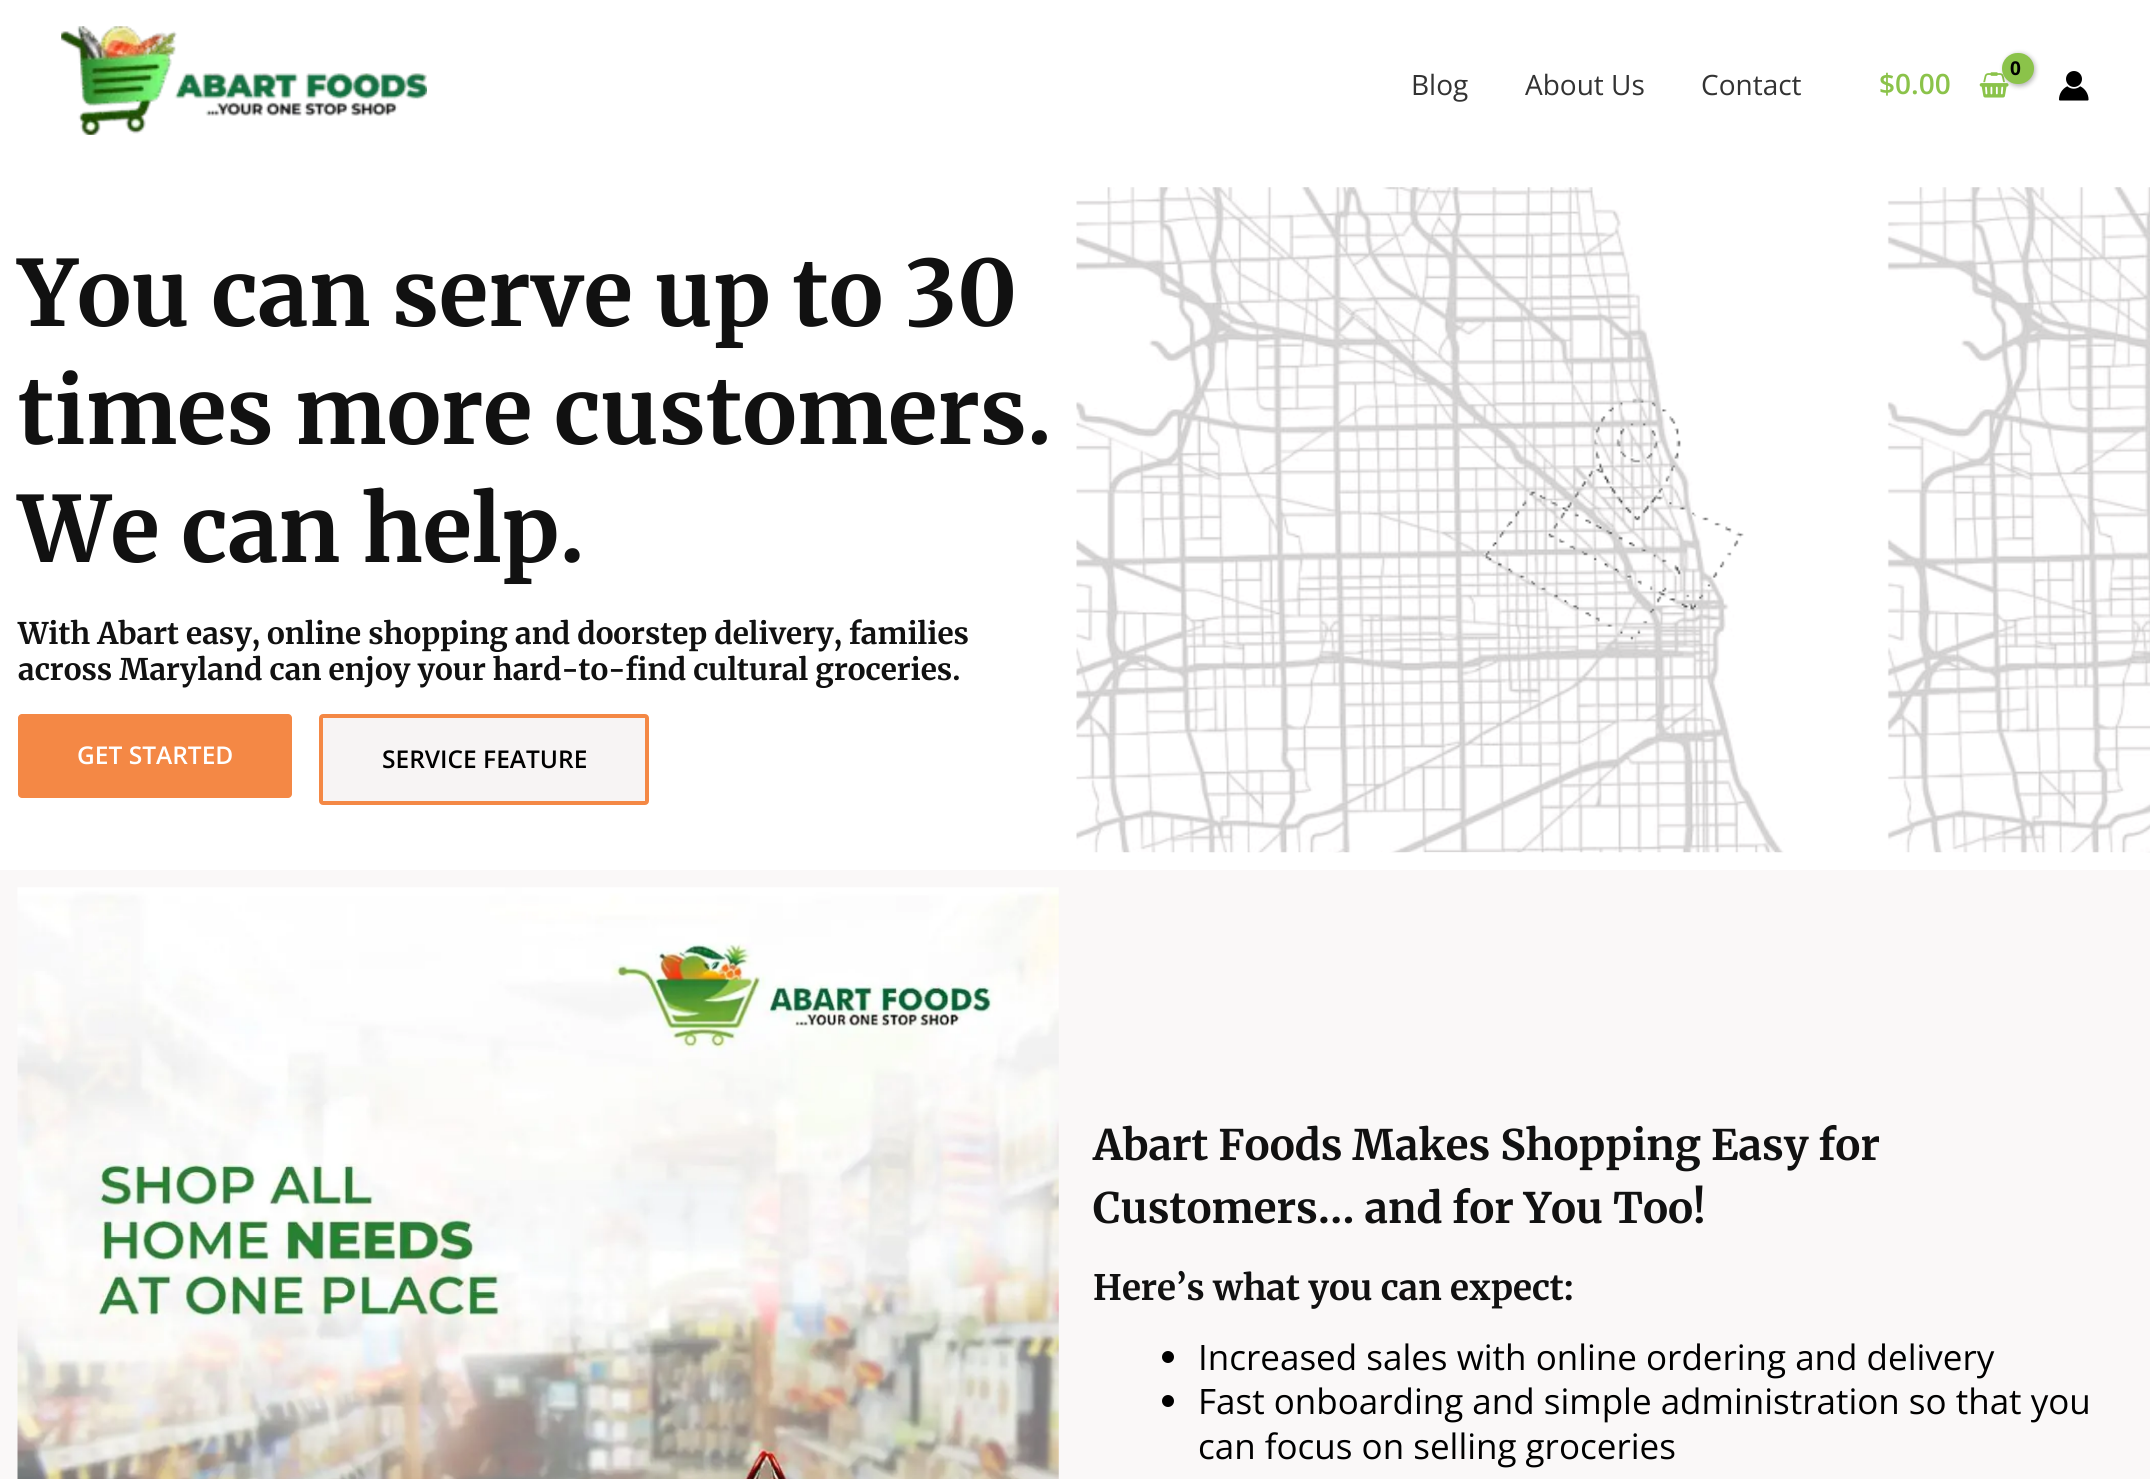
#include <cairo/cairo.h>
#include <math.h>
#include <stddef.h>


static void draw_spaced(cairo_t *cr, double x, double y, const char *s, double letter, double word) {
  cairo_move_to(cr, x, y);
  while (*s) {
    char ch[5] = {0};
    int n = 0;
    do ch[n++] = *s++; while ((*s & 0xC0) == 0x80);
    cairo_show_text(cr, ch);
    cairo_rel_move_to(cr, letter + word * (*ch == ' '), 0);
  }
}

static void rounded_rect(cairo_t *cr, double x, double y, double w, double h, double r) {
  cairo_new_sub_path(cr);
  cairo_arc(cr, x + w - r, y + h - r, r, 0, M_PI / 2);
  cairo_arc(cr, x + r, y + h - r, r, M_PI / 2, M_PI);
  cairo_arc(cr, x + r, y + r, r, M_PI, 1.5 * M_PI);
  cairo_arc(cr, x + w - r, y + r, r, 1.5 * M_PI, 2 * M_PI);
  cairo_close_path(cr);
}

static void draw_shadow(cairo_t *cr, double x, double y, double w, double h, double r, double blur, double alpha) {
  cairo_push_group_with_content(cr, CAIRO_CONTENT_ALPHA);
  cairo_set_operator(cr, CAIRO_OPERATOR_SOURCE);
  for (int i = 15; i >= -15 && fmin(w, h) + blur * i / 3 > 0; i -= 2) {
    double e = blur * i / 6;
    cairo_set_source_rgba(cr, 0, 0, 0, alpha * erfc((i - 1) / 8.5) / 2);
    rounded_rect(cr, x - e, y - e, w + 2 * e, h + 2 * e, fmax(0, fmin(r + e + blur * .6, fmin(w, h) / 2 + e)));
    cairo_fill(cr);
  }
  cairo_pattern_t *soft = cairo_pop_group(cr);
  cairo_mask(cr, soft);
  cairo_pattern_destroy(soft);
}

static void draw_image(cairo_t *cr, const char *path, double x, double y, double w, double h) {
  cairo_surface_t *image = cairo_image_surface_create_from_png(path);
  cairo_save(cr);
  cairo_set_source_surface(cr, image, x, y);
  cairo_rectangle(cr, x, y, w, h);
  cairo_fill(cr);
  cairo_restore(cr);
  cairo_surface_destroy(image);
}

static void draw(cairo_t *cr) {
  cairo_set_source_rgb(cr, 1, 1, 1);
  cairo_paint(cr);
  draw_image(cr, "images/1.png", 61, 26, 366, 109);
  draw_image(cr, "images/2.png", 1979, 72, 30, 26);
  cairo_set_source_rgb(cr, 0, 0, 0);
  draw_shadow(cr, 2004, 54, 31, 32, 15.5, 2.5, 0.3);
  cairo_set_source_rgb(cr, 139 / 255.0, 195 / 255.0, 74 / 255.0);
  rounded_rect(cr, 2002, 53, 32, 31, 15.5);
  cairo_fill(cr);
  draw_image(cr, "images/3.png", 2059, 71, 30, 30);
  cairo_set_source_rgb(cr, 244 / 255.0, 136 / 255.0, 69 / 255.0);
  rounded_rect(cr, 18, 714, 274, 84, 4);
  cairo_fill(cr);
  cairo_set_source_rgb(cr, 247 / 255.0, 244 / 255.0, 244 / 255.0);
  rounded_rect(cr, 321, 716, 326, 87, 2);
  cairo_fill_preserve(cr);
  cairo_set_source_rgb(cr, 244 / 255.0, 136 / 255.0, 69 / 255.0);
  cairo_set_line_width(cr, 4);
  cairo_stroke(cr);
  draw_image(cr, "images/4.png", 1076, 187, 1074, 666);
  draw_image(cr, "images/5.png", 1483, 398, 261, 243);
  cairo_set_source_rgb(cr, 250 / 255.0, 248 / 255.0, 248 / 255.0);
  cairo_rectangle(cr, 0, 870, 2150, 609);
  cairo_fill(cr);
  draw_image(cr, "images/6.png", 17, 887, 1042, 592);
  cairo_set_source_rgb(cr, 0, 0, 0);
  cairo_arc(cr, 1168, 1357, 6, 0, 2 * M_PI);
  cairo_fill(cr);
  cairo_arc(cr, 1168, 1401, 6, 0, 2 * M_PI);
  cairo_fill(cr);
  cairo_select_font_face(cr, "Open Sans", CAIRO_FONT_SLANT_NORMAL, CAIRO_FONT_WEIGHT_NORMAL);
  cairo_set_font_size(cr, 28);
  cairo_set_source_rgb(cr, 51 / 255.0, 51 / 255.0, 51 / 255.0);
  cairo_move_to(cr, 1411, 95);
  cairo_show_text(cr, "Blog");
  cairo_move_to(cr, 1525, 95);
  cairo_show_text(cr, "About Us");
  cairo_move_to(cr, 1701, 95);
  cairo_show_text(cr, "Contact");
  cairo_select_font_face(cr, "Open Sans", CAIRO_FONT_SLANT_NORMAL, CAIRO_FONT_WEIGHT_BOLD);
  cairo_set_font_size(cr, 19);
  cairo_set_source_rgb(cr, 0, 0, 0);
  draw_spaced(cr, 2010, 75, "0", -1, 0);
  cairo_select_font_face(cr, "Open Sans SemiBold", CAIRO_FONT_SLANT_NORMAL, CAIRO_FONT_WEIGHT_NORMAL);
  cairo_set_font_size(cr, 28);
  cairo_set_source_rgb(cr, 139 / 255.0, 195 / 255.0, 74 / 255.0);
  cairo_move_to(cr, 1879, 94);
  cairo_show_text(cr, "$0.00");
  cairo_select_font_face(cr, "Merriweather", CAIRO_FONT_SLANT_NORMAL, CAIRO_FONT_WEIGHT_BOLD);
  cairo_set_font_size(cr, 91);
  cairo_set_source_rgb(cr, 17 / 255.0, 17 / 255.0, 17 / 255.0);
  cairo_move_to(cr, 18, 326);
  cairo_show_text(cr, "You can serve up to 30");
  cairo_move_to(cr, 18, 444);
  cairo_show_text(cr, "times more customers.");
  cairo_move_to(cr, 18, 562);
  cairo_show_text(cr, "We can help.");
  cairo_set_font_size(cr, 29.75);
  cairo_move_to(cr, 18, 644);
  cairo_show_text(cr, "With Abart easy, online shopping and doorstep delivery, families");
  cairo_move_to(cr, 18, 680);
  cairo_show_text(cr, "across Maryland can enjoy your hard-to-find cultural groceries.");
  cairo_select_font_face(cr, "Open Sans SemiBold", CAIRO_FONT_SLANT_NORMAL, CAIRO_FONT_WEIGHT_NORMAL);
  cairo_set_font_size(cr, 24.5);
  cairo_set_source_rgb(cr, 1, 1, 1);
  cairo_move_to(cr, 77, 764);
  cairo_show_text(cr, "GET STARTED");
  cairo_set_source_rgb(cr, 0, 0, 0);
  cairo_move_to(cr, 382, 768);
  cairo_show_text(cr, "SERVICE FEATURE");
  cairo_select_font_face(cr, "Merriweather", CAIRO_FONT_SLANT_NORMAL, CAIRO_FONT_WEIGHT_BOLD);
  cairo_set_font_size(cr, 42);
  cairo_set_source_rgb(cr, 17 / 255.0, 17 / 255.0, 17 / 255.0);
  cairo_move_to(cr, 1093, 1160);
  cairo_show_text(cr, "Abart Foods Makes Shopping Easy for");
  cairo_move_to(cr, 1093, 1223);
  cairo_show_text(cr, "Customers… and for You Too!");
  cairo_set_font_size(cr, 35);
  cairo_move_to(cr, 1093, 1300);
  cairo_show_text(cr, "Here’s what you can expect:");
  cairo_select_font_face(cr, "Open Sans", CAIRO_FONT_SLANT_NORMAL, CAIRO_FONT_WEIGHT_NORMAL);
  cairo_set_source_rgb(cr, 0, 0, 0);
  cairo_move_to(cr, 1198, 1370);
  cairo_show_text(cr, "Increased sales with online ordering and delivery");
  cairo_move_to(cr, 1198, 1414);
  cairo_show_text(cr, "Fast onboarding and simple administration so that you");
  cairo_move_to(cr, 1198, 1459);
  cairo_show_text(cr, "can focus on selling groceries");
}

int main(void) {
  cairo_surface_t *surface = cairo_image_surface_create(CAIRO_FORMAT_RGB24, 2150, 1479);
  cairo_t *cr = cairo_create(surface);
  cairo_font_options_t *options = cairo_font_options_create();
  cairo_font_options_set_hint_metrics(options, CAIRO_HINT_METRICS_OFF);
  cairo_font_options_set_hint_style(options, CAIRO_HINT_STYLE_NONE);
  cairo_set_font_options(cr, options);
  cairo_set_miter_limit(cr, 4);
  draw(cr);
  cairo_surface_write_to_png(surface, "out.png");
  cairo_font_options_destroy(options);
  cairo_destroy(cr);
  cairo_surface_destroy(surface);
  return 0;
}
